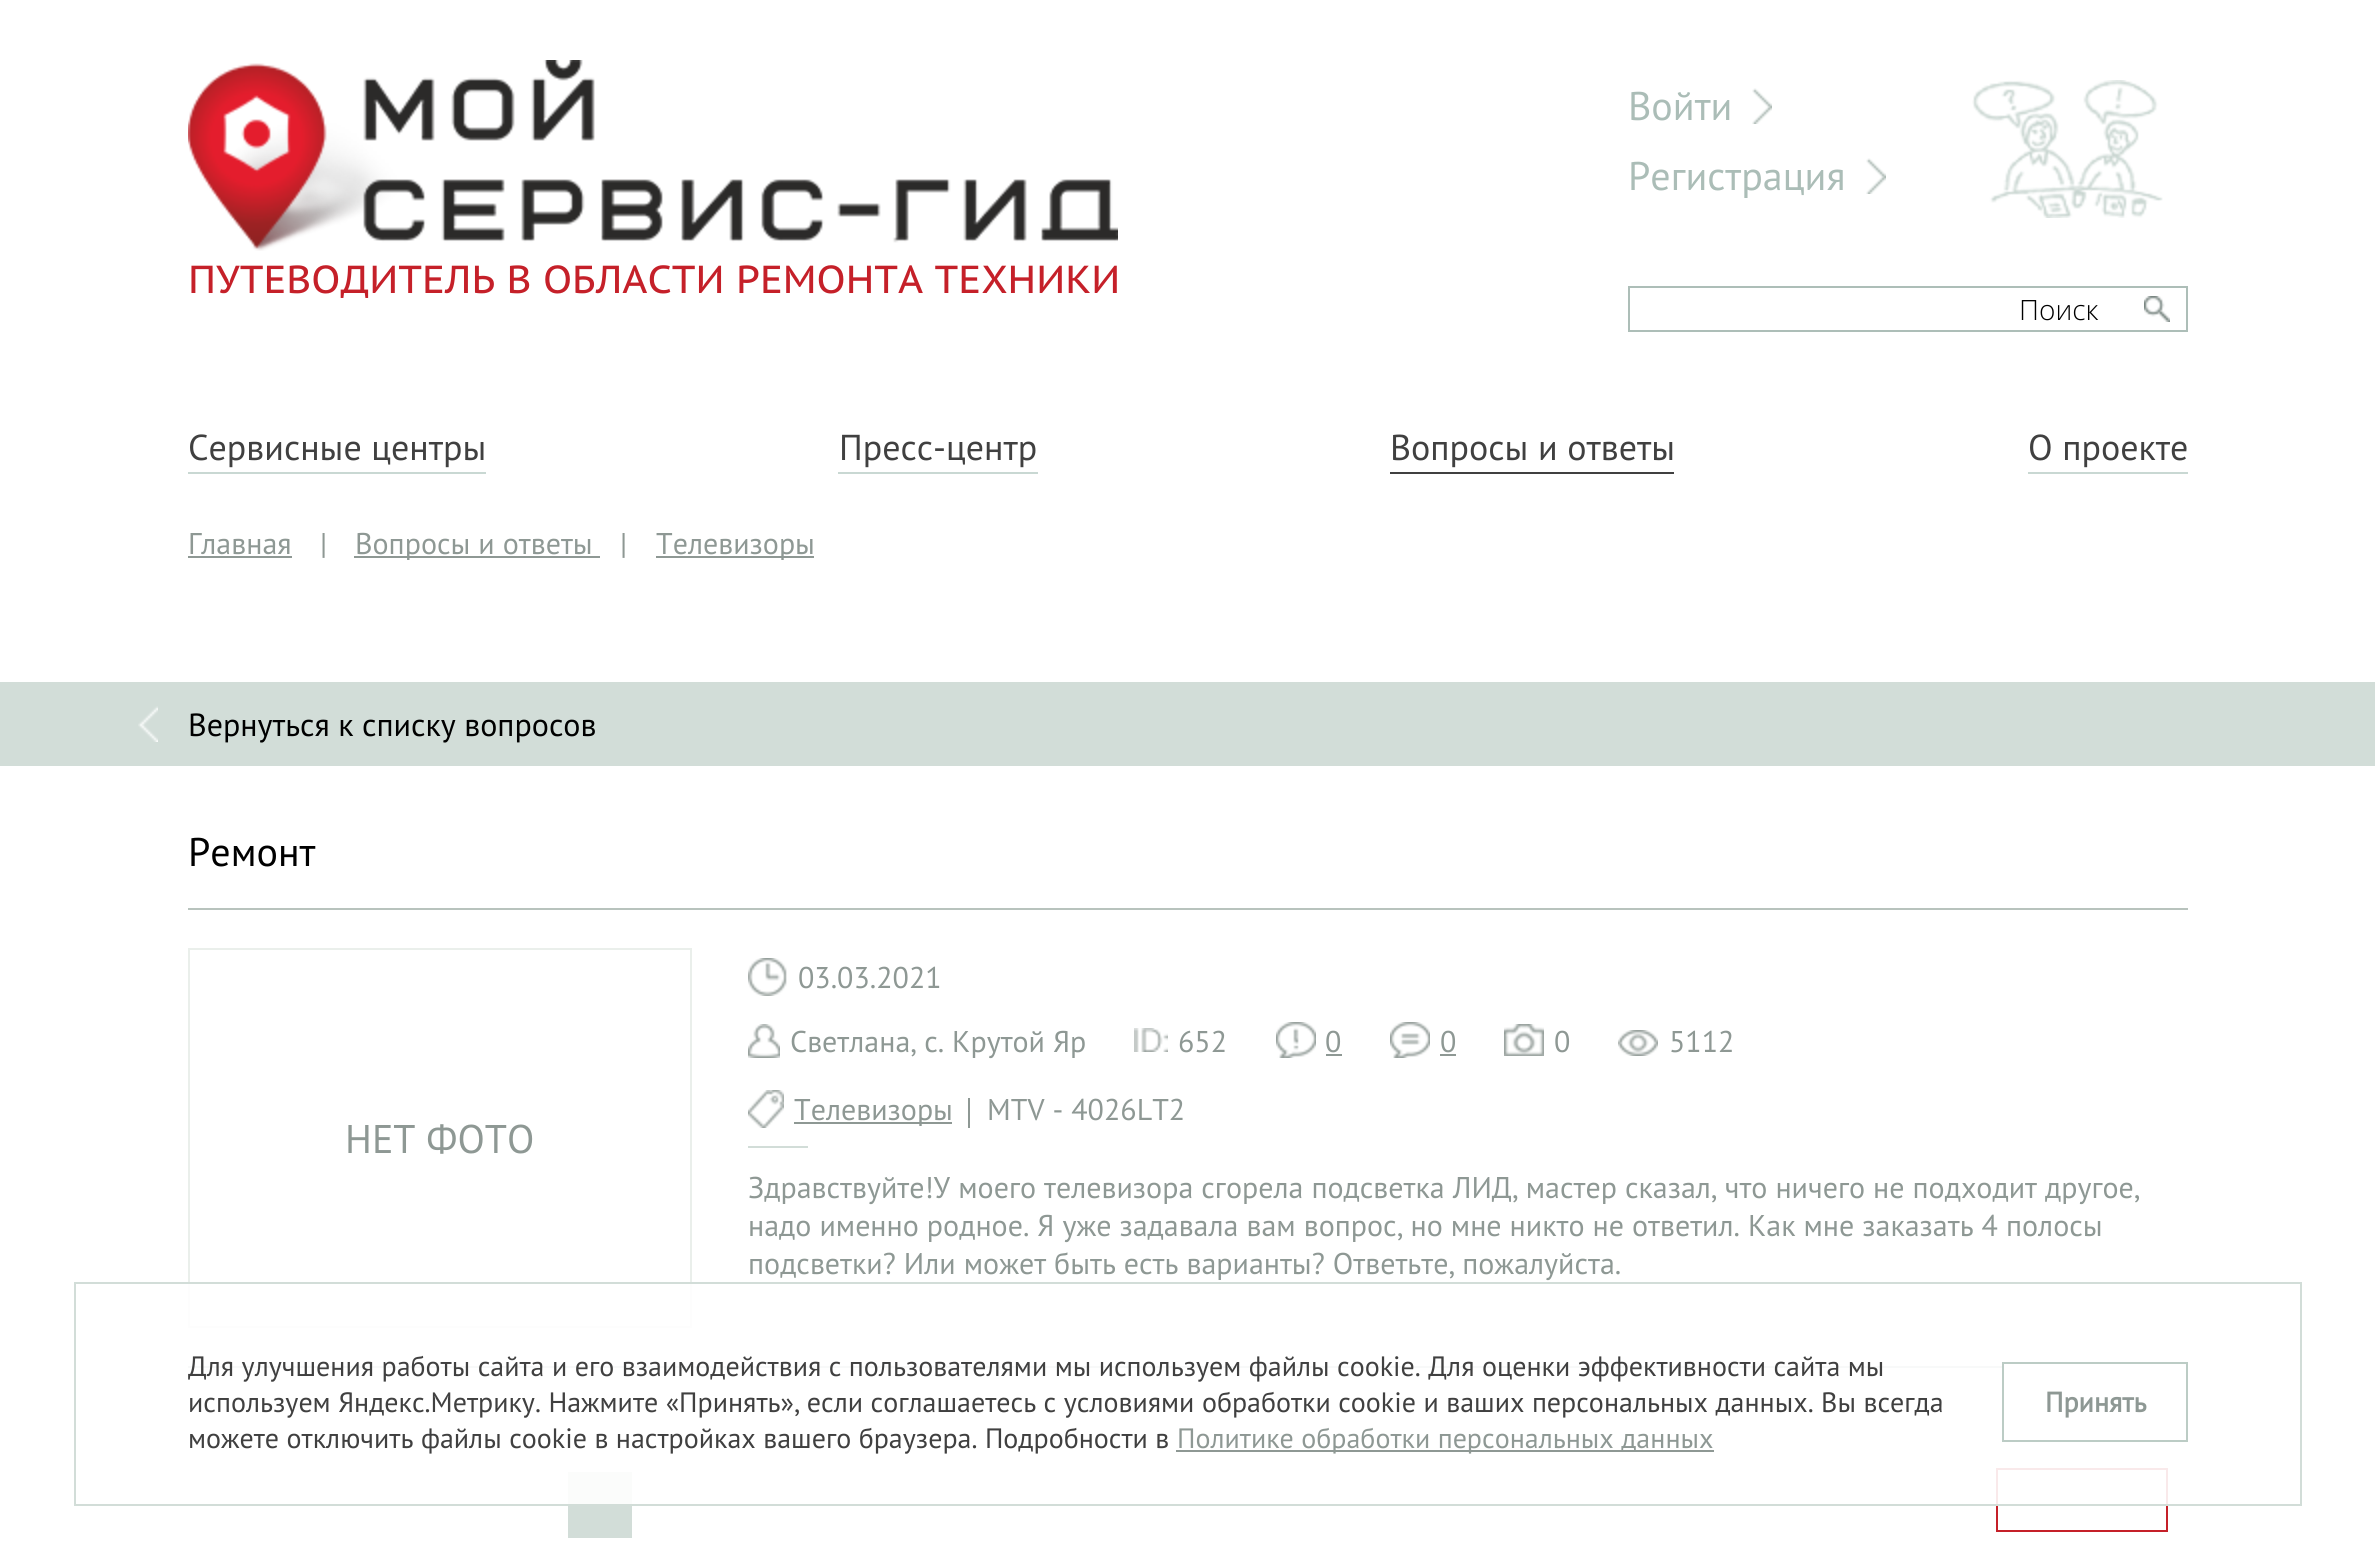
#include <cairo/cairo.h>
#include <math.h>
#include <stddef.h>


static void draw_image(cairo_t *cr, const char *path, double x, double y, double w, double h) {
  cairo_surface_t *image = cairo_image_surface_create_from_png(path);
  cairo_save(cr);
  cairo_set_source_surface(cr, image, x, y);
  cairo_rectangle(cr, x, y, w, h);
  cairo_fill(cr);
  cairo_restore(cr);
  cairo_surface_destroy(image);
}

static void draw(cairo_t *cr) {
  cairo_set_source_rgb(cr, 1, 1, 1);
  cairo_paint(cr);
  draw_image(cr, "images/1.png", 188, 60, 930, 191);
  draw_image(cr, "images/2.png", 1972, 80, 191, 138);
  draw_image(cr, "images/3.png", 1752, 88, 20, 36);
  draw_image(cr, "images/3.png", 1866, 158, 20, 36);
  cairo_rectangle(cr, 1629, 287, 558, 44);
  cairo_set_source_rgb(cr, 173 / 255.0, 190 / 255.0, 184 / 255.0);
  cairo_stroke(cr);
  draw_image(cr, "images/4.png", 2144, 296, 26, 26);
  cairo_set_source_rgb(cr, 201 / 255.0, 216 / 255.0, 211 / 255.0);
  cairo_rectangle(cr, 188, 472, 298, 2);
  cairo_fill(cr);
  cairo_rectangle(cr, 838, 472, 200, 2);
  cairo_fill(cr);
  cairo_set_source_rgb(cr, 64 / 255.0, 64 / 255.0, 64 / 255.0);
  cairo_rectangle(cr, 1390, 472, 284, 2);
  cairo_fill(cr);
  cairo_set_source_rgb(cr, 201 / 255.0, 216 / 255.0, 211 / 255.0);
  cairo_rectangle(cr, 2028, 472, 160, 2);
  cairo_fill(cr);
  cairo_set_source_rgb(cr, 142 / 255.0, 152 / 255.0, 148 / 255.0);
  cairo_rectangle(cr, 188, 556, 104, 2);
  cairo_fill(cr);
  cairo_rectangle(cr, 354, 556, 246, 2);
  cairo_fill(cr);
  cairo_rectangle(cr, 656, 556, 158, 2);
  cairo_fill(cr);
  cairo_set_source_rgb(cr, 210 / 255.0, 221 / 255.0, 216 / 255.0);
  cairo_rectangle(cr, 0, 682, 2375, 84);
  cairo_fill(cr);
  draw_image(cr, "images/5.png", 138, 706, 20, 36);
  cairo_set_source_rgb(cr, 184 / 255.0, 195 / 255.0, 189 / 255.0);
  cairo_rectangle(cr, 188, 908, 2000, 2);
  cairo_fill(cr);
  cairo_rectangle(cr, 188, 1366, 1814, 2);
  cairo_fill(cr);
  draw_image(cr, "images/6.png", 748, 958, 39, 38);
  draw_image(cr, "images/7.png", 748, 1024, 32, 34);
  draw_image(cr, "images/8.png", 1134, 1028, 34, 24);
  draw_image(cr, "images/9.png", 1276, 1022, 40, 36);
  cairo_set_source_rgb(cr, 142 / 255.0, 152 / 255.0, 148 / 255.0);
  cairo_rectangle(cr, 1326, 1054, 16, 2);
  cairo_fill(cr);
  draw_image(cr, "images/10.png", 1390, 1022, 40, 36);
  cairo_rectangle(cr, 1440, 1054, 16, 2);
  cairo_fill(cr);
  draw_image(cr, "images/11.png", 1504, 1024, 40, 32);
  draw_image(cr, "images/12.png", 1618, 1030, 40, 26);
  draw_image(cr, "images/13.png", 748, 1090, 36, 38);
  cairo_rectangle(cr, 794, 1122, 158, 2);
  cairo_fill(cr);
  cairo_rectangle(cr, 968, 1098, 2, 30);
  cairo_fill(cr);
  cairo_set_source_rgb(cr, 210 / 255.0, 221 / 255.0, 216 / 255.0);
  cairo_rectangle(cr, 748, 1146, 60, 2);
  cairo_fill(cr);
  cairo_rectangle(cr, 189, 949, 502, 378);
  cairo_set_source_rgb(cr, 234 / 255.0, 239 / 255.0, 235 / 255.0);
  cairo_stroke(cr);
  cairo_set_source_rgb(cr, 210 / 255.0, 221 / 255.0, 216 / 255.0);
  cairo_rectangle(cr, 568, 1472, 64, 66);
  cairo_fill(cr);
  cairo_rectangle(cr, 1997, 1469, 170, 62);
  cairo_set_source_rgb(cr, 197 / 255.0, 32 / 255.0, 41 / 255.0);
  cairo_stroke(cr);
  cairo_set_source_rgba(cr, 1, 1, 1, 0.9);
  cairo_rectangle(cr, 188, 1284, 1980, 220);
  cairo_fill(cr);
  cairo_rectangle(cr, 75, 1283, 2226, 222);
  cairo_set_source_rgb(cr, 210 / 255.0, 221 / 255.0, 216 / 255.0);
  cairo_stroke(cr);
  cairo_set_source_rgb(cr, 142 / 255.0, 152 / 255.0, 148 / 255.0);
  cairo_rectangle(cr, 1176, 1450, 538, 2);
  cairo_fill(cr);
  cairo_rectangle(cr, 2003, 1363, 184, 78);
  cairo_set_source_rgb(cr, 188 / 255.0, 204 / 255.0, 197 / 255.0);
  cairo_stroke(cr);
  cairo_select_font_face(cr, "PT Sans Caption", CAIRO_FONT_SLANT_NORMAL, CAIRO_FONT_WEIGHT_NORMAL);
  cairo_set_font_size(cr, 39);
  cairo_set_source_rgb(cr, 197 / 255.0, 32 / 255.0, 41 / 255.0);
  cairo_move_to(cr, 188, 293);
  cairo_show_text(cr, "ПУТЕВОДИТЕЛЬ В ОБЛАСТИ РЕМОНТА ТЕХНИКИ");
  cairo_select_font_face(cr, "PT Sans", CAIRO_FONT_SLANT_NORMAL, CAIRO_FONT_WEIGHT_NORMAL);
  cairo_set_font_size(cr, 40);
  cairo_set_source_rgb(cr, 171 / 255.0, 189 / 255.0, 183 / 255.0);
  cairo_move_to(cr, 1628, 120);
  cairo_show_text(cr, "Войти");
  cairo_move_to(cr, 1628, 190);
  cairo_show_text(cr, "Регистрация");
  cairo_select_font_face(cr, "Open Sans Light", CAIRO_FONT_SLANT_NORMAL, CAIRO_FONT_WEIGHT_NORMAL);
  cairo_set_font_size(cr, 28);
  cairo_set_source_rgb(cr, 0, 0, 0);
  cairo_move_to(cr, 2019, 320);
  cairo_show_text(cr, "Поиск");
  cairo_select_font_face(cr, "PT Sans", CAIRO_FONT_SLANT_NORMAL, CAIRO_FONT_WEIGHT_NORMAL);
  cairo_set_font_size(cr, 36);
  cairo_set_source_rgb(cr, 64 / 255.0, 64 / 255.0, 64 / 255.0);
  cairo_move_to(cr, 188, 460);
  cairo_show_text(cr, "Сервисные центры");
  cairo_move_to(cr, 839, 460);
  cairo_show_text(cr, "Пресс-центр");
  cairo_move_to(cr, 1390, 460);
  cairo_show_text(cr, "Вопросы и ответы");
  cairo_move_to(cr, 2028, 460);
  cairo_show_text(cr, "О проекте");
  cairo_set_font_size(cr, 30);
  cairo_set_source_rgb(cr, 142 / 255.0, 152 / 255.0, 148 / 255.0);
  cairo_move_to(cr, 188, 554);
  cairo_show_text(cr, "Главная");
  cairo_move_to(cr, 320, 554);
  cairo_show_text(cr, "|");
  cairo_move_to(cr, 355, 554);
  cairo_show_text(cr, "Вопросы и ответы");
  cairo_move_to(cr, 620, 554);
  cairo_show_text(cr, "|");
  cairo_move_to(cr, 656, 554);
  cairo_show_text(cr, "Телевизоры");
  cairo_set_font_size(cr, 32);
  cairo_set_source_rgb(cr, 0, 0, 0);
  cairo_move_to(cr, 188, 736);
  cairo_show_text(cr, "Вернуться к списку вопросов");
  cairo_set_font_size(cr, 40);
  cairo_move_to(cr, 188, 866);
  cairo_show_text(cr, "Ремонт");
  cairo_set_font_size(cr, 30);
  cairo_set_source_rgb(cr, 142 / 255.0, 152 / 255.0, 148 / 255.0);
  cairo_move_to(cr, 798, 988);
  cairo_show_text(cr, "03.03.2021");
  cairo_move_to(cr, 790, 1052);
  cairo_show_text(cr, "Светлана, с. Крутой Яр");
  cairo_move_to(cr, 1178, 1052);
  cairo_show_text(cr, "652");
  cairo_move_to(cr, 1325, 1052);
  cairo_show_text(cr, "0");
  cairo_move_to(cr, 1440, 1052);
  cairo_show_text(cr, "0");
  cairo_move_to(cr, 1554, 1052);
  cairo_show_text(cr, "0");
  cairo_move_to(cr, 1669, 1052);
  cairo_show_text(cr, "5112");
  cairo_move_to(cr, 794, 1120);
  cairo_show_text(cr, "Телевизоры");
  cairo_move_to(cr, 987, 1120);
  cairo_show_text(cr, "MTV - 4026LT2");
  cairo_set_font_size(cr, 40);
  cairo_move_to(cr, 345, 1153);
  cairo_show_text(cr, "НЕТ ФОТО");
  cairo_set_font_size(cr, 30);
  cairo_move_to(cr, 748, 1198);
  cairo_show_text(cr, "Здравствуйте!У моего телевизора сгорела подсветка ЛИД, мастер сказал, что ничего не подходит другое,");
  cairo_move_to(cr, 748, 1236);
  cairo_show_text(cr, "надо именно родное. Я уже задавала вам вопрос, но мне никто не ответил. Как мне заказать 4 полосы");
  cairo_move_to(cr, 748, 1274);
  cairo_show_text(cr, "подсветки? Или может быть есть варианты? Ответьте, пожалуйста.");
  cairo_set_font_size(cr, 28);
  cairo_set_source_rgb(cr, 64 / 255.0, 64 / 255.0, 64 / 255.0);
  cairo_move_to(cr, 188, 1376);
  cairo_show_text(cr, "Для улучшения работы сайта и его взаимодействия с пользователями мы используем файлы cookie. Для оценки эффективности сайта мы");
  cairo_move_to(cr, 188, 1412);
  cairo_show_text(cr, "используем Яндекс.Метрику. Нажмите «Принять», если соглашаетесь с условиями обработки cookie и ваших персональных данных. Вы всегда");
  cairo_move_to(cr, 188, 1448);
  cairo_show_text(cr, "можете отключить файлы cookie в настройках вашего браузера. Подробности в");
  cairo_set_source_rgb(cr, 142 / 255.0, 152 / 255.0, 148 / 255.0);
  cairo_move_to(cr, 1177, 1448);
  cairo_show_text(cr, "Политике обработки персональных данных");
  cairo_select_font_face(cr, "PT Sans", CAIRO_FONT_SLANT_NORMAL, CAIRO_FONT_WEIGHT_BOLD);
  cairo_move_to(cr, 2045, 1412);
  cairo_show_text(cr, "Принять");
}

int main(void) {
  cairo_surface_t *surface = cairo_image_surface_create(CAIRO_FORMAT_RGB24, 2375, 1546);
  cairo_t *cr = cairo_create(surface);
  cairo_font_options_t *options = cairo_font_options_create();
  cairo_font_options_set_hint_metrics(options, CAIRO_HINT_METRICS_OFF);
  cairo_font_options_set_hint_style(options, CAIRO_HINT_STYLE_NONE);
  cairo_set_font_options(cr, options);
  cairo_set_miter_limit(cr, 4);
  draw(cr);
  cairo_surface_write_to_png(surface, "out.png");
  cairo_font_options_destroy(options);
  cairo_destroy(cr);
  cairo_surface_destroy(surface);
  return 0;
}
